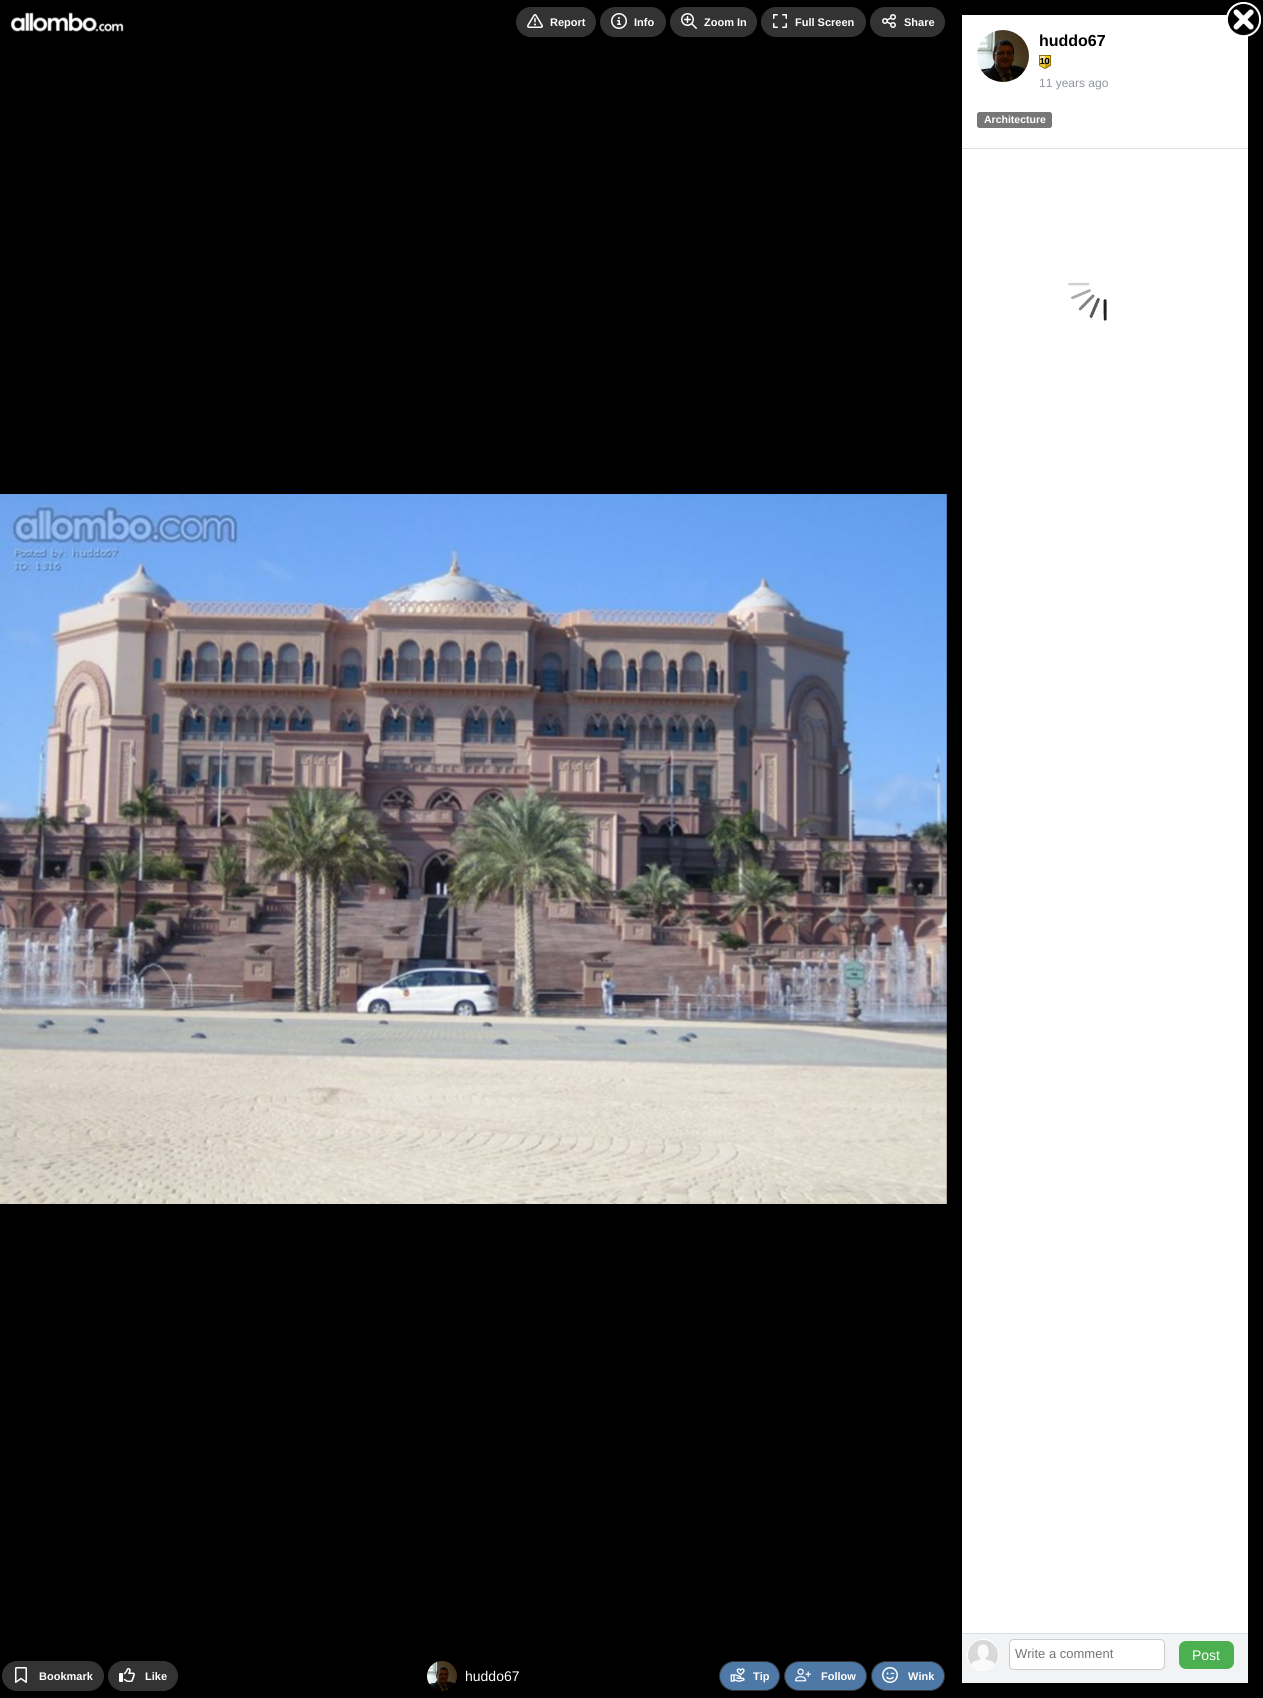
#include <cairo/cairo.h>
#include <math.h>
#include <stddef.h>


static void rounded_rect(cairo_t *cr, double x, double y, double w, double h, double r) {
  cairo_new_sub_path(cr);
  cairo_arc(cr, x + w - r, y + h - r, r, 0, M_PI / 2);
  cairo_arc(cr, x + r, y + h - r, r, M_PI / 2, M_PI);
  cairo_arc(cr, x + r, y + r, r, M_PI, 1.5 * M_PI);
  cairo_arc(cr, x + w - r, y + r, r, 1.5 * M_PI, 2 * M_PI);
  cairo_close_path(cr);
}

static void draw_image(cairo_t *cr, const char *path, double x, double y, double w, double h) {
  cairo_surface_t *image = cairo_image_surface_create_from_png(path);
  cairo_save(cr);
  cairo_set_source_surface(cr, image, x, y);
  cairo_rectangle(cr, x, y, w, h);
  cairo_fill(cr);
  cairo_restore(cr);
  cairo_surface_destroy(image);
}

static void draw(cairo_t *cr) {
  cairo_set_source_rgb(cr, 0, 0, 0);
  cairo_paint(cr);
  draw_image(cr, "images/1.png", 10, 12, 114, 20);
  cairo_set_source_rgb(cr, 51 / 255.0, 51 / 255.0, 51 / 255.0);
  rounded_rect(cr, 516.5, 7.5, 79, 29, 14.5);
  cairo_fill_preserve(cr);
  cairo_set_line_width(cr, 1);
  cairo_stroke(cr);
  draw_image(cr, "images/2.png", 527, 14, 16, 14);
  rounded_rect(cr, 600.5, 7.5, 65, 29, 14.5);
  cairo_fill_preserve(cr);
  cairo_stroke(cr);
  draw_image(cr, "images/3.png", 611, 13, 16, 16);
  rounded_rect(cr, 670.5, 7.5, 86, 29, 14.5);
  cairo_fill_preserve(cr);
  cairo_stroke(cr);
  draw_image(cr, "images/4.png", 681, 13, 16, 16);
  rounded_rect(cr, 761.5, 7.5, 104, 29, 14.5);
  cairo_fill_preserve(cr);
  cairo_stroke(cr);
  draw_image(cr, "images/5.png", 773, 14, 14, 14);
  rounded_rect(cr, 870.5, 7.5, 74, 29, 14.5);
  cairo_fill_preserve(cr);
  cairo_stroke(cr);
  draw_image(cr, "images/6.png", 882, 14, 14, 14);
  rounded_rect(cr, 2.5, 1661.5, 101, 29, 14.5);
  cairo_fill_preserve(cr);
  cairo_stroke(cr);
  draw_image(cr, "images/7.png", 15, 1667, 12, 16);
  rounded_rect(cr, 108.5, 1661.5, 69, 29, 14.5);
  cairo_fill_preserve(cr);
  cairo_stroke(cr);
  draw_image(cr, "images/8.png", 119, 1668, 16, 14);
  draw_image(cr, "images/9.png", 427, 1661, 30, 30);
  cairo_set_source_rgb(cr, 78 / 255.0, 121 / 255.0, 167 / 255.0);
  rounded_rect(cr, 719.5, 1661.5, 60, 29, 14.5);
  cairo_fill_preserve(cr);
  cairo_set_source_rgb(cr, 51 / 255.0, 51 / 255.0, 51 / 255.0);
  cairo_stroke(cr);
  draw_image(cr, "images/10.png", 730, 1668, 15, 14);
  cairo_set_source_rgb(cr, 78 / 255.0, 121 / 255.0, 167 / 255.0);
  rounded_rect(cr, 784.5, 1661.5, 82, 29, 14.5);
  cairo_fill_preserve(cr);
  cairo_set_source_rgb(cr, 51 / 255.0, 51 / 255.0, 51 / 255.0);
  cairo_stroke(cr);
  draw_image(cr, "images/11.png", 795, 1668, 16, 14);
  cairo_set_source_rgb(cr, 78 / 255.0, 121 / 255.0, 167 / 255.0);
  rounded_rect(cr, 871.5, 1661.5, 73, 29, 14.5);
  cairo_fill_preserve(cr);
  cairo_set_source_rgb(cr, 51 / 255.0, 51 / 255.0, 51 / 255.0);
  cairo_stroke(cr);
  draw_image(cr, "images/12.png", 882, 1667, 16, 16);
  draw_image(cr, "images/13.png", 0, 494, 947, 710);
  cairo_set_source_rgb(cr, 1, 1, 1);
  cairo_rectangle(cr, 962, 15, 286, 1618);
  cairo_fill(cr);
  draw_image(cr, "images/14.png", 1226, 2, 35, 35);
  draw_image(cr, "images/15.png", 977, 30, 52, 52);
  draw_image(cr, "images/16.png", 1039, 55, 12, 14);
  cairo_set_source_rgb(cr, 218 / 255.0, 221 / 255.0, 225 / 255.0);
  cairo_rectangle(cr, 962, 148, 286, 1);
  cairo_fill(cr);
  cairo_set_source_rgb(cr, 119 / 255.0, 119 / 255.0, 119 / 255.0);
  rounded_rect(cr, 977, 112, 75, 16, 2.5);
  cairo_fill(cr);
  draw_image(cr, "images/17.png", 1068, 282, 39, 39);
  cairo_set_source_rgb(cr, 242 / 255.0, 243 / 255.0, 245 / 255.0);
  cairo_rectangle(cr, 962, 1634, 286, 49);
  cairo_fill(cr);
  cairo_set_source_rgb(cr, 218 / 255.0, 221 / 255.0, 225 / 255.0);
  cairo_rectangle(cr, 962, 1633, 286, 1);
  cairo_fill(cr);
  cairo_arc(cr, 983, 1655, 15.5, 0, 2 * M_PI);
  cairo_set_source_rgb(cr, 1, 1, 1);
  cairo_stroke(cr);
  draw_image(cr, "images/18.png", 968, 1640, 30, 30);
  rounded_rect(cr, 1009.5, 1639.5, 155, 30, 4.5);
  cairo_fill_preserve(cr);
  cairo_set_source_rgb(cr, 204 / 255.0, 204 / 255.0, 204 / 255.0);
  cairo_stroke(cr);
  cairo_set_source_rgb(cr, 76 / 255.0, 175 / 255.0, 80 / 255.0);
  rounded_rect(cr, 1179, 1641, 55, 28, 7);
  cairo_fill(cr);
  cairo_select_font_face(cr, "Liberation Sans", CAIRO_FONT_SLANT_NORMAL, CAIRO_FONT_WEIGHT_BOLD);
  cairo_set_font_size(cr, 11);
  cairo_set_source_rgb(cr, 1, 1, 1);
  cairo_move_to(cr, 550, 26);
  cairo_show_text(cr, "Report");
  cairo_move_to(cr, 634, 26);
  cairo_show_text(cr, "Info");
  cairo_move_to(cr, 704, 26);
  cairo_show_text(cr, "Zoom In");
  cairo_move_to(cr, 795, 26);
  cairo_show_text(cr, "Full Screen");
  cairo_move_to(cr, 904, 26);
  cairo_show_text(cr, "Share");
  cairo_move_to(cr, 39, 1680);
  cairo_show_text(cr, "Bookmark");
  cairo_move_to(cr, 145, 1680);
  cairo_show_text(cr, "Like");
  cairo_select_font_face(cr, "Liberation Sans", CAIRO_FONT_SLANT_NORMAL, CAIRO_FONT_WEIGHT_NORMAL);
  cairo_set_font_size(cr, 14);
  cairo_move_to(cr, 465, 1681);
  cairo_show_text(cr, "huddo67");
  cairo_select_font_face(cr, "Liberation Sans", CAIRO_FONT_SLANT_NORMAL, CAIRO_FONT_WEIGHT_BOLD);
  cairo_set_font_size(cr, 11);
  cairo_move_to(cr, 753, 1680);
  cairo_show_text(cr, "Tip");
  cairo_move_to(cr, 821, 1680);
  cairo_show_text(cr, "Follow");
  cairo_move_to(cr, 908, 1680);
  cairo_show_text(cr, "Wink");
  cairo_set_font_size(cr, 16);
  cairo_set_source_rgb(cr, 0, 0, 0);
  cairo_move_to(cr, 1039, 46);
  cairo_show_text(cr, "huddo67");
  cairo_select_font_face(cr, "Liberation Sans", CAIRO_FONT_SLANT_NORMAL, CAIRO_FONT_WEIGHT_NORMAL);
  cairo_set_font_size(cr, 12);
  cairo_set_source_rgb(cr, 144 / 255.0, 148 / 255.0, 156 / 255.0);
  cairo_move_to(cr, 1039, 87);
  cairo_show_text(cr, "11 years ago");
  cairo_select_font_face(cr, "Liberation Sans", CAIRO_FONT_SLANT_NORMAL, CAIRO_FONT_WEIGHT_BOLD);
  cairo_set_font_size(cr, 10.5);
  cairo_set_source_rgb(cr, 1, 1, 1);
  cairo_move_to(cr, 984, 123);
  cairo_show_text(cr, "Architecture");
  cairo_select_font_face(cr, "Liberation Sans", CAIRO_FONT_SLANT_NORMAL, CAIRO_FONT_WEIGHT_NORMAL);
  cairo_set_font_size(cr, 13);
  cairo_set_source_rgb(cr, 117 / 255.0, 117 / 255.0, 117 / 255.0);
  cairo_move_to(cr, 1015, 1658);
  cairo_show_text(cr, "Write a comment");
  cairo_set_font_size(cr, 14);
  cairo_set_source_rgb(cr, 1, 1, 1);
  cairo_move_to(cr, 1192, 1660);
  cairo_show_text(cr, "Post");
}

int main(void) {
  cairo_surface_t *surface = cairo_image_surface_create(CAIRO_FORMAT_RGB24, 1263, 1698);
  cairo_t *cr = cairo_create(surface);
  cairo_font_options_t *options = cairo_font_options_create();
  cairo_font_options_set_hint_metrics(options, CAIRO_HINT_METRICS_OFF);
  cairo_font_options_set_hint_style(options, CAIRO_HINT_STYLE_NONE);
  cairo_set_font_options(cr, options);
  cairo_set_miter_limit(cr, 4);
  draw(cr);
  cairo_surface_write_to_png(surface, "out.png");
  cairo_font_options_destroy(options);
  cairo_destroy(cr);
  cairo_surface_destroy(surface);
  return 0;
}
